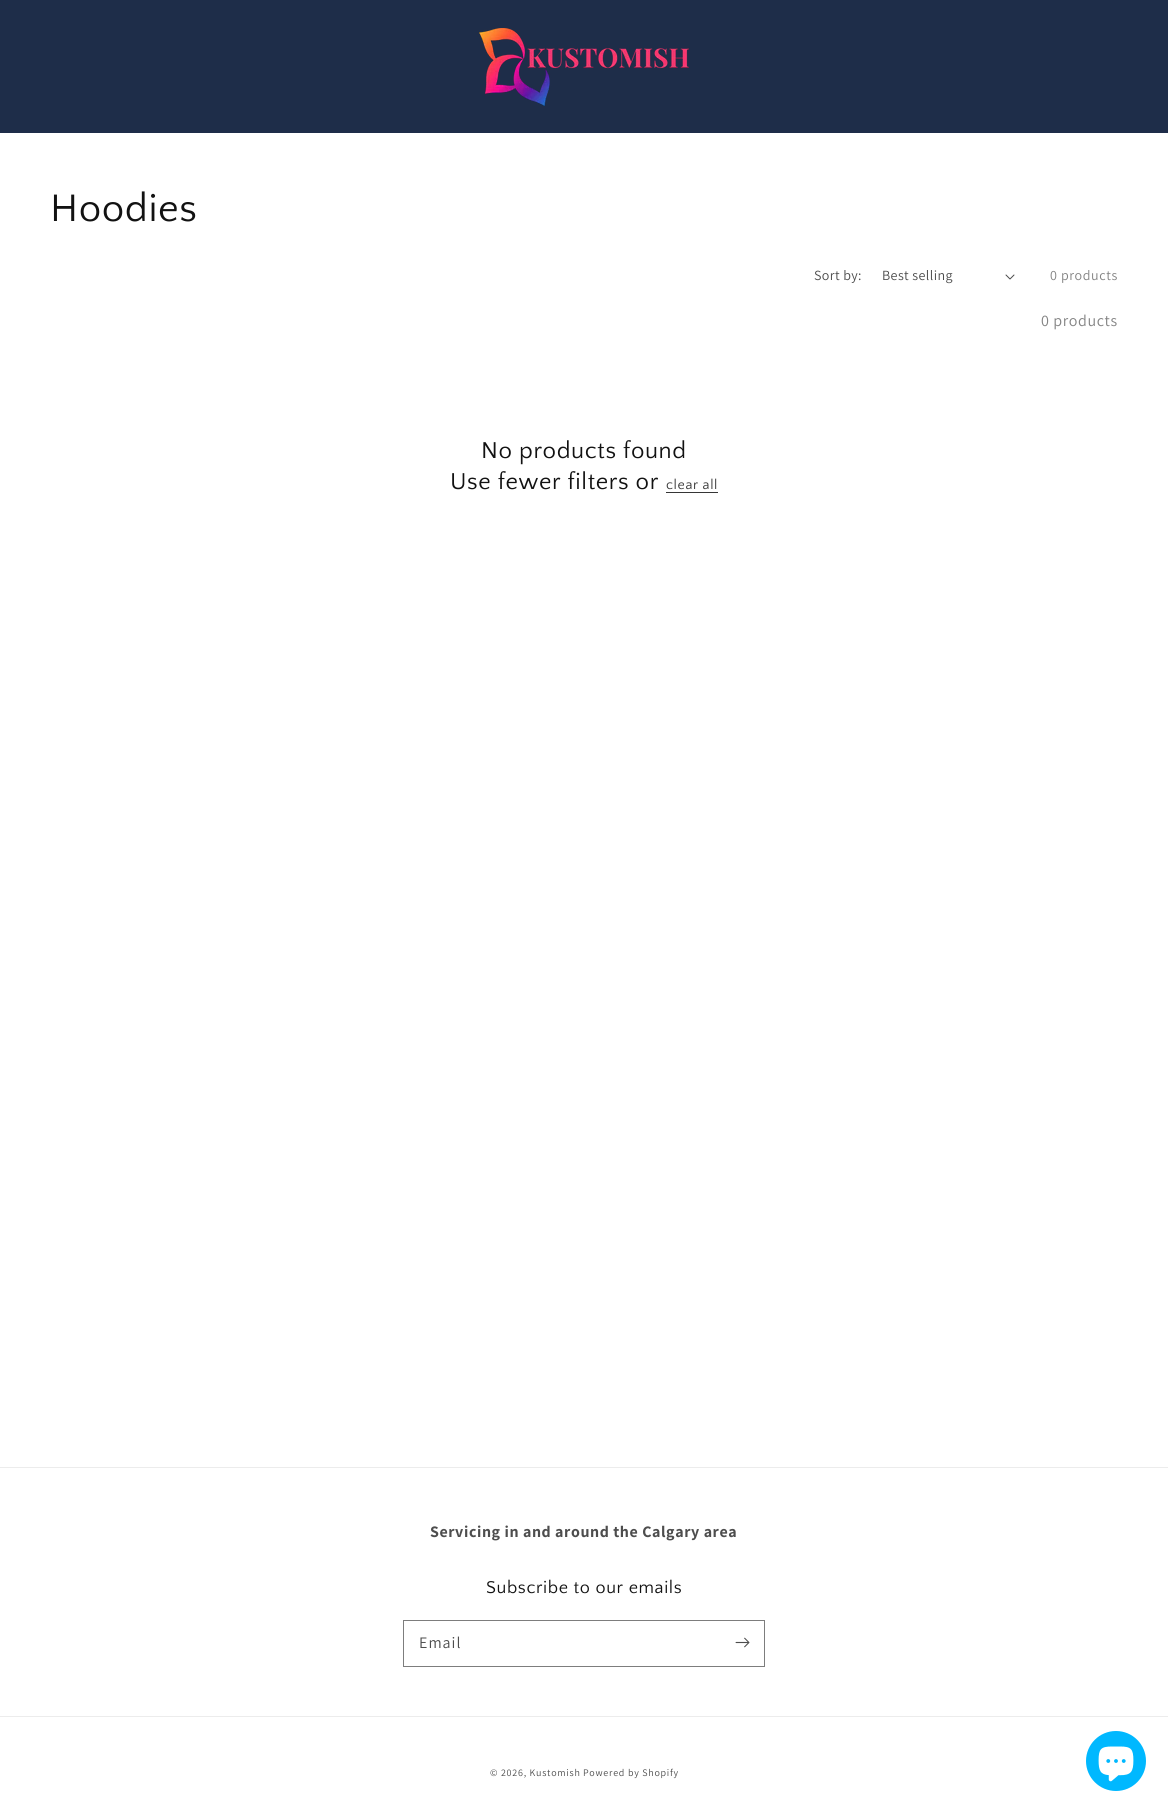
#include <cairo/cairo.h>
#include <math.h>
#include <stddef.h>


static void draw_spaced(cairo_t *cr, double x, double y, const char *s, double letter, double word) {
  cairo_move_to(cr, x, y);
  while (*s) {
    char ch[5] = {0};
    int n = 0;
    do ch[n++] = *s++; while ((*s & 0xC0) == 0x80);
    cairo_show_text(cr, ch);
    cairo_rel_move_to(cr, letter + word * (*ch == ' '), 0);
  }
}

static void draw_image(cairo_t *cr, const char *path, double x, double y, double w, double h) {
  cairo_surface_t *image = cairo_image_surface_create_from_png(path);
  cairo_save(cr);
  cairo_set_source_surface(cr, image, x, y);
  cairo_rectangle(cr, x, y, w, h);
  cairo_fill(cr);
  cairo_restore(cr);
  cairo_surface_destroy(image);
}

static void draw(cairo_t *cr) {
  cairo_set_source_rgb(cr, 1, 1, 1);
  cairo_paint(cr);
  cairo_set_source_rgb(cr, 30 / 255.0, 45 / 255.0, 73 / 255.0);
  cairo_rectangle(cr, 0, 0, 1168, 133);
  cairo_fill(cr);
  draw_image(cr, "images/1.png", 479, 28, 210, 78);
  draw_image(cr, "images/2.png", 1005, 274, 10, 6);
  cairo_set_source_rgb(cr, 54 / 255.0, 54 / 255.0, 54 / 255.0);
  cairo_rectangle(cr, 666, 492, 52, 1);
  cairo_fill(cr);
  cairo_set_source_rgb(cr, 236 / 255.0, 236 / 255.0, 236 / 255.0);
  cairo_rectangle(cr, 0, 1467, 1168, 1);
  cairo_fill(cr);
  cairo_rectangle(cr, 403.5, 1620.5, 361, 46);
  cairo_set_source_rgb(cr, 125 / 255.0, 125 / 255.0, 125 / 255.0);
  cairo_set_line_width(cr, 1);
  cairo_stroke(cr);
  draw_image(cr, "images/3.png", 735, 1637, 15, 11);
  cairo_set_source_rgb(cr, 236 / 255.0, 236 / 255.0, 236 / 255.0);
  cairo_rectangle(cr, 0, 1716, 1168, 1);
  cairo_fill(cr);
  cairo_set_source_rgb(cr, 0, 184 / 255.0, 1);
  cairo_arc(cr, 1116, 1761, 30, 0, 2 * M_PI);
  cairo_fill(cr);
  draw_image(cr, "images/4.png", 1098, 1746, 36, 36);
  cairo_select_font_face(cr, "Quattrocento Sans", CAIRO_FONT_SLANT_NORMAL, CAIRO_FONT_WEIGHT_NORMAL);
  cairo_set_font_size(cr, 40);
  cairo_set_source_rgb(cr, 18 / 255.0, 18 / 255.0, 18 / 255.0);
  draw_spaced(cr, 50, 221, "Hoodies", 0.6, 0);
  cairo_select_font_face(cr, "Assistant", CAIRO_FONT_SLANT_NORMAL, CAIRO_FONT_WEIGHT_NORMAL);
  cairo_set_font_size(cr, 14);
  cairo_set_source_rgb(cr, 77 / 255.0, 77 / 255.0, 77 / 255.0);
  draw_spaced(cr, 814, 280, "Sort by:", 0.4, 0);
  draw_spaced(cr, 882, 280, "Best selling", 0.4, 0);
  cairo_set_source_rgb(cr, 131 / 255.0, 131 / 255.0, 131 / 255.0);
  draw_spaced(cr, 1050, 280, "0 products", 0.6, 0);
  cairo_set_font_size(cr, 16);
  draw_spaced(cr, 1041, 326, "0 products", 0.6, 0);
  cairo_select_font_face(cr, "Quattrocento Sans", CAIRO_FONT_SLANT_NORMAL, CAIRO_FONT_WEIGHT_NORMAL);
  cairo_set_font_size(cr, 24);
  cairo_set_source_rgb(cr, 18 / 255.0, 18 / 255.0, 18 / 255.0);
  draw_spaced(cr, 481, 458, "No products found", 0.6, 0);
  draw_spaced(cr, 450, 489, "Use fewer filters or", 0.6, 0);
  cairo_set_font_size(cr, 14);
  cairo_set_source_rgb(cr, 54 / 255.0, 54 / 255.0, 54 / 255.0);
  draw_spaced(cr, 666, 489, "clear all", 0.6, 0);
  cairo_select_font_face(cr, "Assistant", CAIRO_FONT_SLANT_NORMAL, CAIRO_FONT_WEIGHT_BOLD);
  cairo_set_font_size(cr, 16);
  cairo_set_source_rgb(cr, 77 / 255.0, 77 / 255.0, 77 / 255.0);
  draw_spaced(cr, 430, 1537, "Servicing in and around the Calgary area", 0.6, 0);
  cairo_select_font_face(cr, "Quattrocento Sans", CAIRO_FONT_SLANT_NORMAL, CAIRO_FONT_WEIGHT_NORMAL);
  cairo_set_font_size(cr, 18);
  cairo_set_source_rgb(cr, 18 / 255.0, 18 / 255.0, 18 / 255.0);
  draw_spaced(cr, 486, 1593, "Subscribe to our emails", 0.6, 0);
  cairo_select_font_face(cr, "Assistant", CAIRO_FONT_SLANT_NORMAL, CAIRO_FONT_WEIGHT_NORMAL);
  cairo_set_font_size(cr, 16);
  cairo_set_source_rgb(cr, 77 / 255.0, 77 / 255.0, 77 / 255.0);
  draw_spaced(cr, 419, 1648, "Email", 1, 0);
  cairo_set_font_size(cr, 10);
  draw_spaced(cr, 490, 1776, "© 2026, Kustomish", 0.75, 0);
  draw_spaced(cr, 583, 1776, "Powered by Shopify", 0.75, 0);
}

int main(void) {
  cairo_surface_t *surface = cairo_image_surface_create(CAIRO_FORMAT_RGB24, 1168, 1812);
  cairo_t *cr = cairo_create(surface);
  cairo_font_options_t *options = cairo_font_options_create();
  cairo_font_options_set_hint_metrics(options, CAIRO_HINT_METRICS_OFF);
  cairo_font_options_set_hint_style(options, CAIRO_HINT_STYLE_NONE);
  cairo_set_font_options(cr, options);
  cairo_set_miter_limit(cr, 4);
  draw(cr);
  cairo_surface_write_to_png(surface, "out.png");
  cairo_font_options_destroy(options);
  cairo_destroy(cr);
  cairo_surface_destroy(surface);
  return 0;
}
